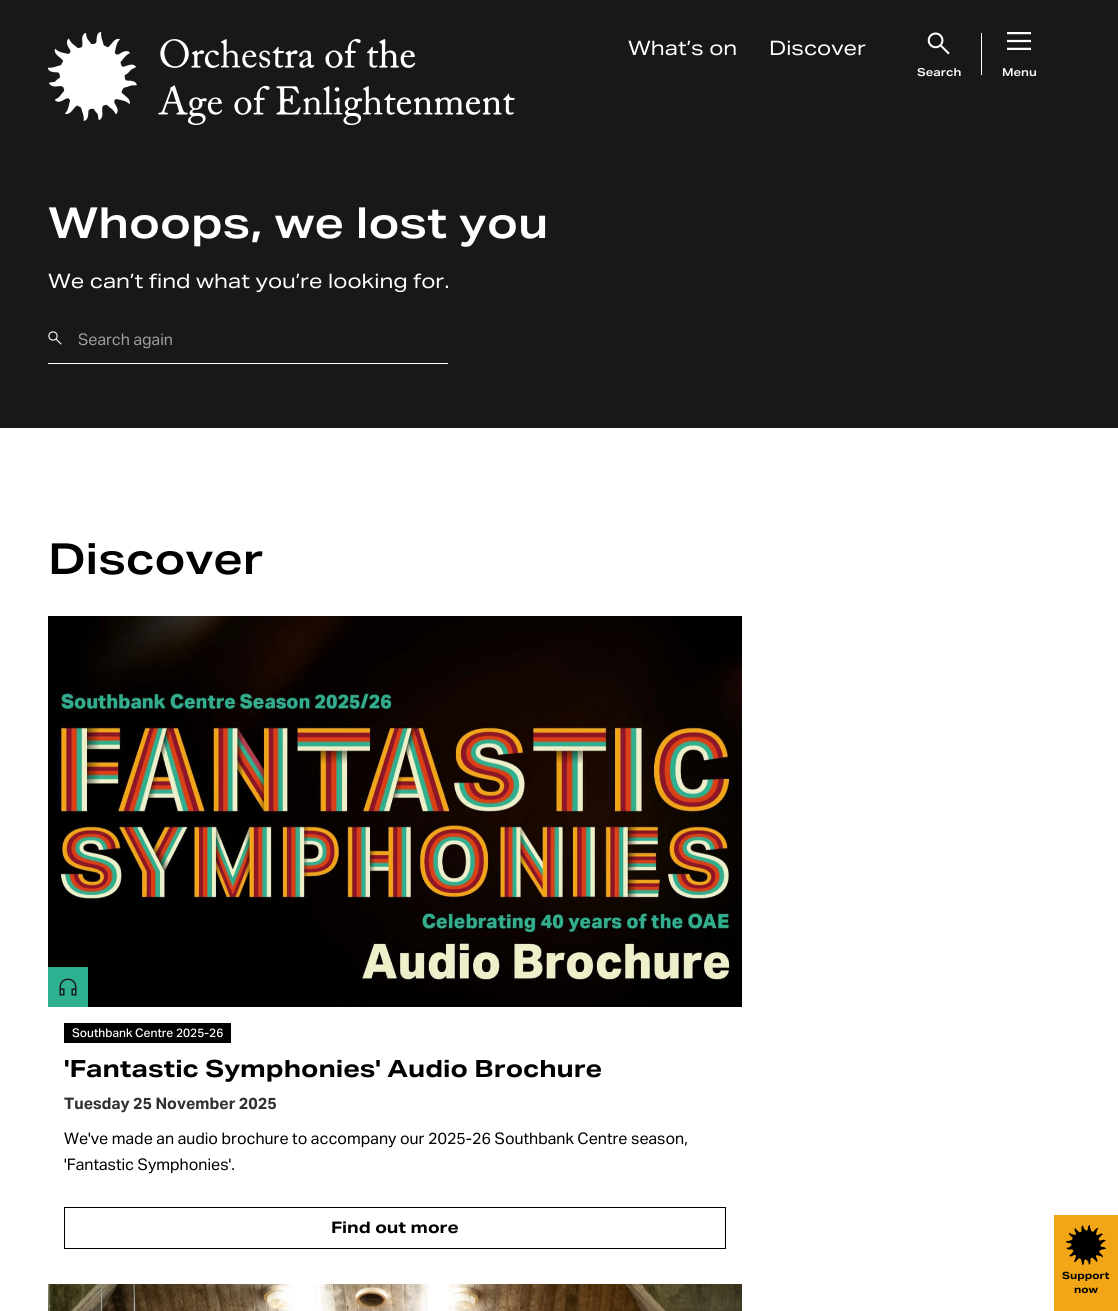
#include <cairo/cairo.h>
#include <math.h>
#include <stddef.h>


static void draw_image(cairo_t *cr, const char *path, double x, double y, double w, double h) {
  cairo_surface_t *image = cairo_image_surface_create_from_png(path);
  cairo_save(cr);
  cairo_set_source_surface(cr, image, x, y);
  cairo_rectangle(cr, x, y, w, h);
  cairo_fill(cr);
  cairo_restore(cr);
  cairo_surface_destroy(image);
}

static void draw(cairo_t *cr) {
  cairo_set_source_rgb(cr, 1, 1, 1);
  cairo_paint(cr);
  cairo_set_source_rgb(cr, 25 / 255.0, 24 / 255.0, 24 / 255.0);
  cairo_rectangle(cr, 0, 0, 1118, 428);
  cairo_fill(cr);
  draw_image(cr, "images/1.png", 48, 32, 467, 94);
  cairo_set_source_rgb(cr, 1, 1, 1);
  cairo_rectangle(cr, 981, 33, 1, 42);
  cairo_fill(cr);
  draw_image(cr, "images/2.png", 927, 32, 23, 23);
  draw_image(cr, "images/3.png", 1007, 32, 24, 18);
  cairo_rectangle(cr, 48, 363, 400, 1);
  cairo_fill(cr);
  draw_image(cr, "images/4.png", 48, 331, 14, 14);
  draw_image(cr, "images/5.png", 48, 616, 694, 391);
  cairo_set_source_rgb(cr, 46 / 255.0, 177 / 255.0, 144 / 255.0);
  cairo_rectangle(cr, 48, 967, 40, 40);
  cairo_fill(cr);
  draw_image(cr, "images/6.png", 59, 978, 18, 18);
  cairo_set_source_rgb(cr, 0, 0, 0);
  cairo_rectangle(cr, 64, 1023, 167, 20);
  cairo_fill(cr);
  cairo_rectangle(cr, 64.5, 1207.5, 661, 41);
  cairo_set_line_width(cr, 1);
  cairo_stroke(cr);
  draw_image(cr, "images/7.png", 48, 1284, 694, 27);
  cairo_set_source_rgb(cr, 242 / 255.0, 166 / 255.0, 21 / 255.0);
  cairo_rectangle(cr, 1054, 1215, 64, 96);
  cairo_fill(cr);
  draw_image(cr, "images/8.png", 1066, 1225, 40, 40);
  cairo_select_font_face(cr, "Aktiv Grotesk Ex", CAIRO_FONT_SLANT_NORMAL, CAIRO_FONT_WEIGHT_NORMAL);
  cairo_set_font_size(cr, 20);
  cairo_set_source_rgb(cr, 1, 1, 1);
  cairo_move_to(cr, 628, 55);
  cairo_show_text(cr, "What’s on");
  cairo_move_to(cr, 769, 55);
  cairo_show_text(cr, "Discover");
  cairo_select_font_face(cr, "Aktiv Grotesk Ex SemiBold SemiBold", CAIRO_FONT_SLANT_NORMAL, CAIRO_FONT_WEIGHT_NORMAL);
  cairo_set_font_size(cr, 11);
  cairo_move_to(cr, 917, 76);
  cairo_show_text(cr, "Search");
  cairo_move_to(cr, 1002, 76);
  cairo_show_text(cr, "Menu");
  cairo_set_font_size(cr, 42.9);
  cairo_move_to(cr, 48, 238);
  cairo_show_text(cr, "Whoops, we lost you");
  cairo_select_font_face(cr, "Aktiv Grotesk Ex", CAIRO_FONT_SLANT_NORMAL, CAIRO_FONT_WEIGHT_NORMAL);
  cairo_set_font_size(cr, 20);
  cairo_move_to(cr, 48, 288);
  cairo_show_text(cr, "We can’t find what you’re looking for.");
  cairo_select_font_face(cr, "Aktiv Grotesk", CAIRO_FONT_SLANT_NORMAL, CAIRO_FONT_WEIGHT_NORMAL);
  cairo_set_font_size(cr, 16);
  cairo_set_source_rgb(cr, 157 / 255.0, 157 / 255.0, 157 / 255.0);
  cairo_move_to(cr, 78, 345);
  cairo_show_text(cr, "Search again");
  cairo_select_font_face(cr, "Aktiv Grotesk Ex SemiBold SemiBold", CAIRO_FONT_SLANT_NORMAL, CAIRO_FONT_WEIGHT_NORMAL);
  cairo_set_font_size(cr, 42.9);
  cairo_set_source_rgb(cr, 0, 0, 0);
  cairo_move_to(cr, 48, 574);
  cairo_show_text(cr, "Discover");
  cairo_select_font_face(cr, "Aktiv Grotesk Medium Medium", CAIRO_FONT_SLANT_NORMAL, CAIRO_FONT_WEIGHT_NORMAL);
  cairo_set_font_size(cr, 12);
  cairo_set_source_rgb(cr, 1, 1, 1);
  cairo_move_to(cr, 72, 1037);
  cairo_show_text(cr, "Southbank Centre 2025-26");
  cairo_select_font_face(cr, "Aktiv Grotesk Ex", CAIRO_FONT_SLANT_NORMAL, CAIRO_FONT_WEIGHT_BOLD);
  cairo_set_font_size(cr, 23.8);
  cairo_set_source_rgb(cr, 0, 0, 0);
  cairo_move_to(cr, 64, 1077);
  cairo_show_text(cr, "'Fantastic Symphonies' Audio Brochure");
  cairo_select_font_face(cr, "Aktiv Grotesk", CAIRO_FONT_SLANT_NORMAL, CAIRO_FONT_WEIGHT_BOLD);
  cairo_set_font_size(cr, 16);
  cairo_set_source_rgb(cr, 51 / 255.0, 48 / 255.0, 48 / 255.0);
  cairo_move_to(cr, 64, 1109);
  cairo_show_text(cr, "Tuesday 25 November 2025");
  cairo_select_font_face(cr, "Aktiv Grotesk", CAIRO_FONT_SLANT_NORMAL, CAIRO_FONT_WEIGHT_NORMAL);
  cairo_set_source_rgb(cr, 0, 0, 0);
  cairo_move_to(cr, 64, 1144);
  cairo_show_text(cr, "We've made an audio brochure to accompany our 2025-26 Southbank Centre season,");
  cairo_move_to(cr, 64, 1170);
  cairo_show_text(cr, "'Fantastic Symphonies'.");
  cairo_select_font_face(cr, "Aktiv Grotesk Ex", CAIRO_FONT_SLANT_NORMAL, CAIRO_FONT_WEIGHT_BOLD);
  cairo_move_to(cr, 331, 1233);
  cairo_show_text(cr, "Find out more");
  cairo_set_font_size(cr, 10);
  cairo_move_to(cr, 1062, 1279);
  cairo_show_text(cr, "Support");
  cairo_move_to(cr, 1074, 1293);
  cairo_show_text(cr, "now");
}

int main(void) {
  cairo_surface_t *surface = cairo_image_surface_create(CAIRO_FORMAT_RGB24, 1118, 1311);
  cairo_t *cr = cairo_create(surface);
  cairo_font_options_t *options = cairo_font_options_create();
  cairo_font_options_set_hint_metrics(options, CAIRO_HINT_METRICS_OFF);
  cairo_font_options_set_hint_style(options, CAIRO_HINT_STYLE_NONE);
  cairo_set_font_options(cr, options);
  cairo_set_miter_limit(cr, 4);
  draw(cr);
  cairo_surface_write_to_png(surface, "out.png");
  cairo_font_options_destroy(options);
  cairo_destroy(cr);
  cairo_surface_destroy(surface);
  return 0;
}
